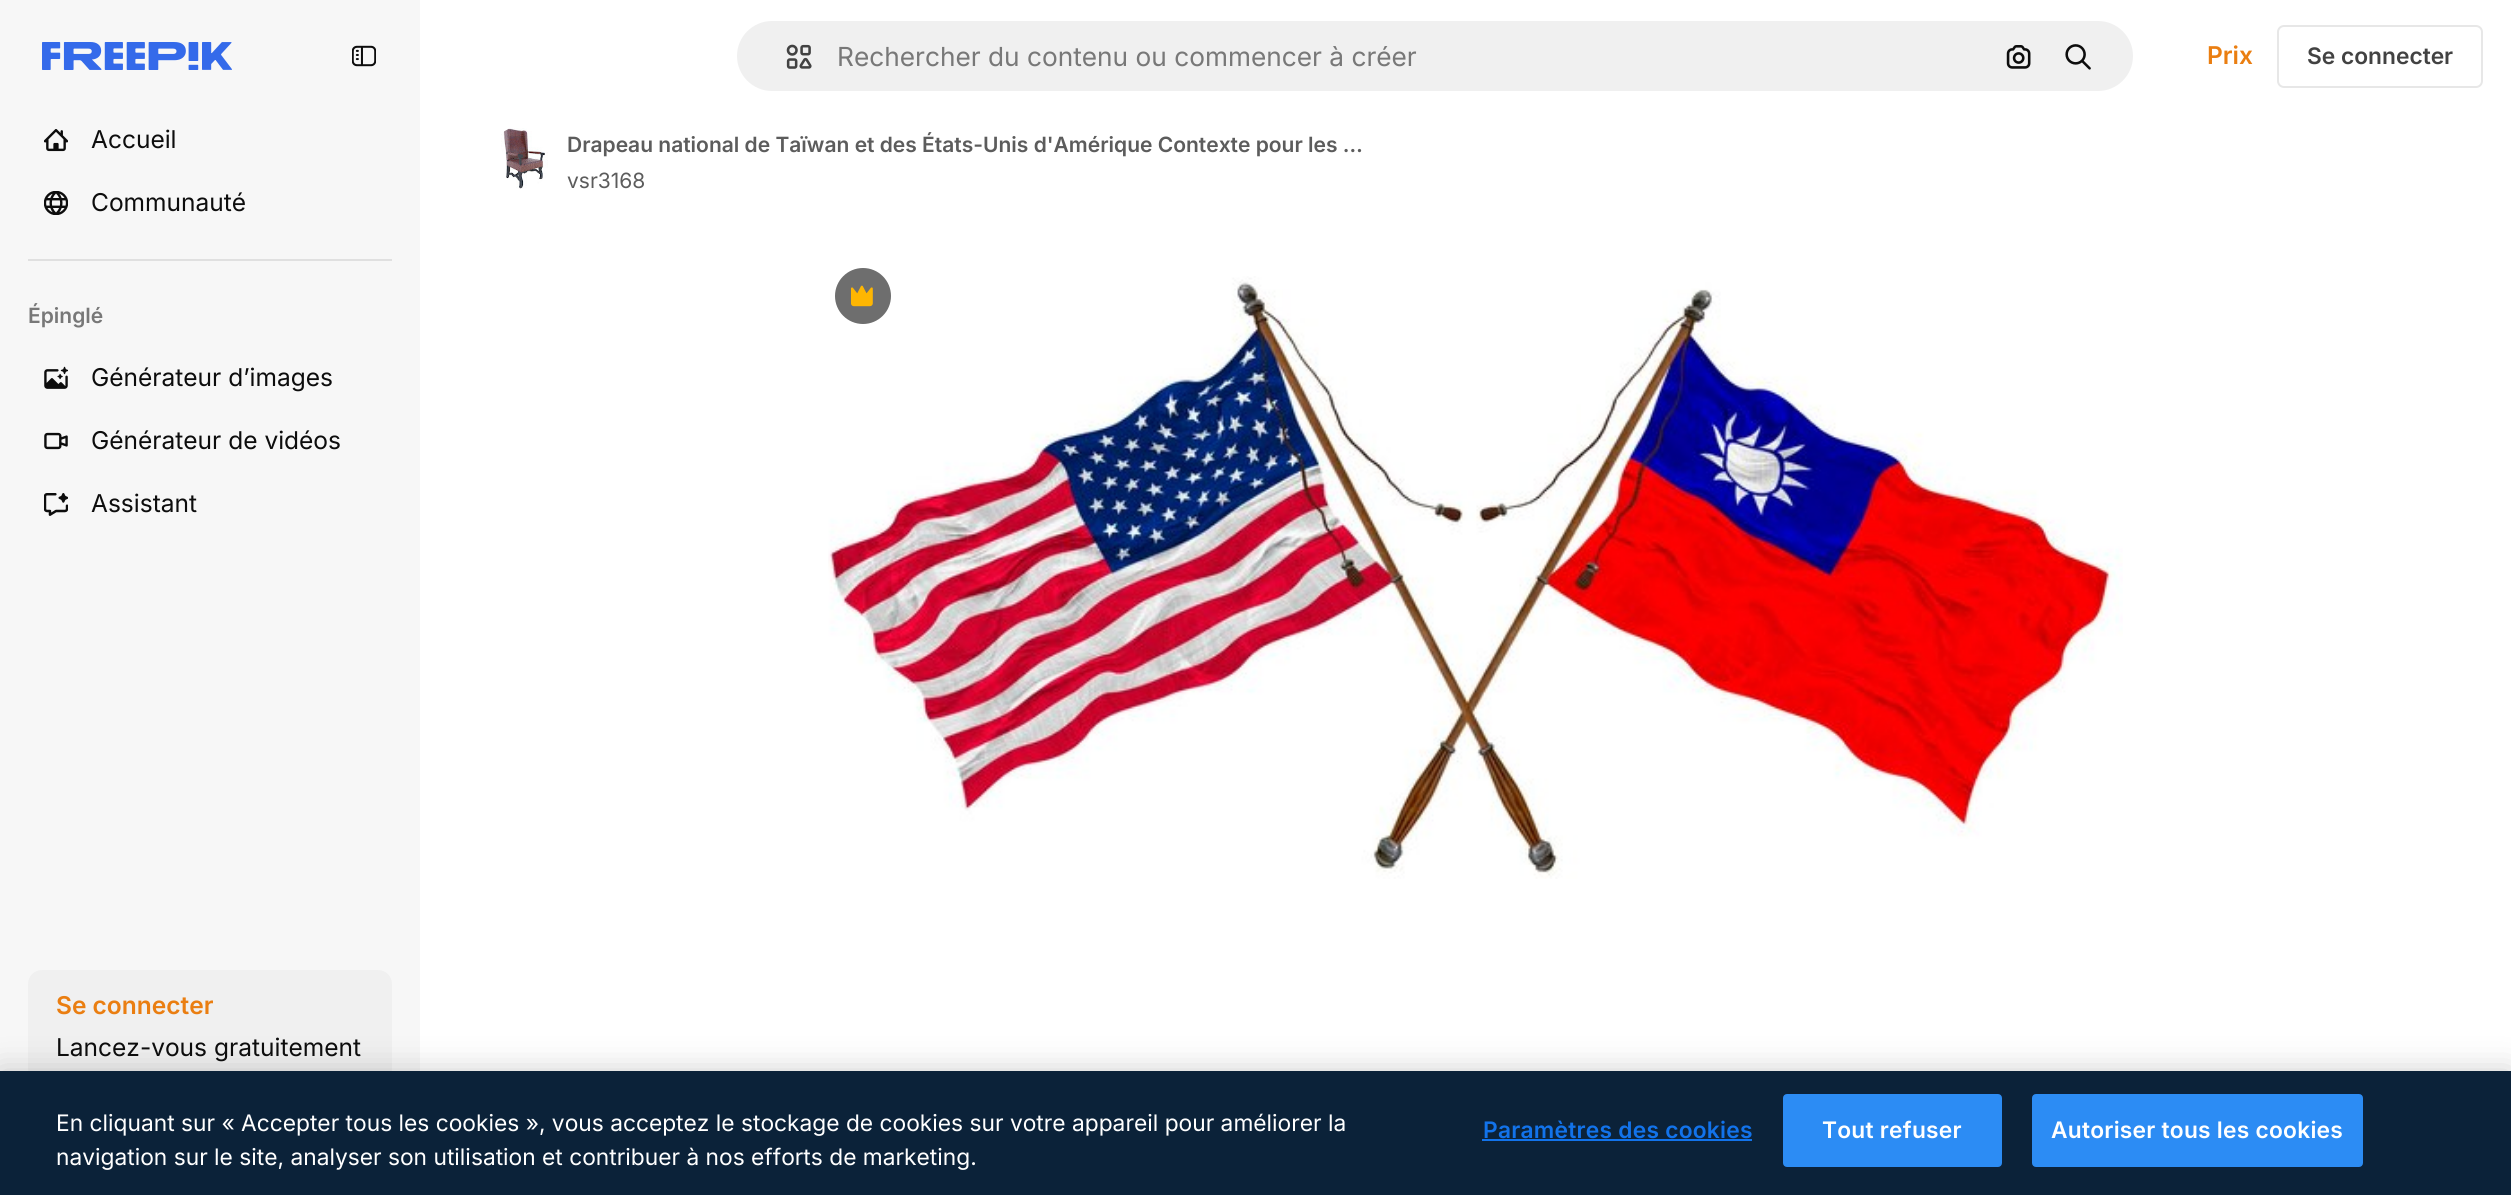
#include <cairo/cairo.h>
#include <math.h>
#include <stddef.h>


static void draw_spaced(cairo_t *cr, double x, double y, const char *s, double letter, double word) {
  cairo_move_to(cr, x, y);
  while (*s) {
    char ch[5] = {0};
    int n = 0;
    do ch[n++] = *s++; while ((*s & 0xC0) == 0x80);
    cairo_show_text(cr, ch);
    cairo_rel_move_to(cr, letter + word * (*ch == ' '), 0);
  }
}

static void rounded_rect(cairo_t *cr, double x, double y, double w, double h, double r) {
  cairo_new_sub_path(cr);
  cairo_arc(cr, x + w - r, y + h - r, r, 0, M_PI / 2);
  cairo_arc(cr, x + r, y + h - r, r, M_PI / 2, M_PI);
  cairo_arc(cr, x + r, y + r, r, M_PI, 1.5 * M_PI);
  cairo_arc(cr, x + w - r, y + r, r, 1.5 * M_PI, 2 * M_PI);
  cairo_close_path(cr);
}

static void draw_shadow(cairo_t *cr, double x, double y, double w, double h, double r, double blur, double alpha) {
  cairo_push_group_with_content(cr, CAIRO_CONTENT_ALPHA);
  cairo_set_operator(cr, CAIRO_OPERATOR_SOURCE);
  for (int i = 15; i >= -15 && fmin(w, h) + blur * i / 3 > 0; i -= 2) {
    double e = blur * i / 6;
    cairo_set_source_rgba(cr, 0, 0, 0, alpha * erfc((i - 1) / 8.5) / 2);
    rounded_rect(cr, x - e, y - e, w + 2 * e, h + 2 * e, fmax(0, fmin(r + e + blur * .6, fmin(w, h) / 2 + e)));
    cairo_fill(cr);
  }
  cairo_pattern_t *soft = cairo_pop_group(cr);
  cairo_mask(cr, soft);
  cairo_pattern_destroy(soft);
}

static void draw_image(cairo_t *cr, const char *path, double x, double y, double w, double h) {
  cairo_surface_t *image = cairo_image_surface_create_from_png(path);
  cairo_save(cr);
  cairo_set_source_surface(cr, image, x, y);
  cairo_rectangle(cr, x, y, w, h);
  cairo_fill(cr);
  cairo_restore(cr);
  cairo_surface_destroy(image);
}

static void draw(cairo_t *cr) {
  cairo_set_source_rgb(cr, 1, 1, 1);
  cairo_paint(cr);
  cairo_set_source_rgb(cr, 247 / 255.0, 247 / 255.0, 247 / 255.0);
  cairo_rectangle(cr, 0, 0, 420, 1071);
  cairo_fill(cr);
  draw_image(cr, "images/1.png", 42, 42, 190, 28);
  draw_image(cr, "images/2.png", 352, 45, 24, 22);
  draw_image(cr, "images/3.png", 44, 129, 24, 23);
  draw_image(cr, "images/4.png", 44, 191, 24, 24);
  cairo_set_source_rgb(cr, 224 / 255.0, 224 / 255.0, 224 / 255.0);
  cairo_rectangle(cr, 28, 259, 364, 2);
  cairo_fill(cr);
  draw_image(cr, "images/5.png", 44, 366, 24, 23);
  draw_image(cr, "images/6.png", 44, 432, 24, 18);
  draw_image(cr, "images/7.png", 44, 493, 24, 23);
  cairo_set_source_rgb(cr, 240 / 255.0, 240 / 255.0, 240 / 255.0);
  rounded_rect(cr, 28, 970, 364, 113, 14);
  cairo_fill(cr);
  rounded_rect(cr, 736, 20, 1398, 72, 36);
  cairo_fill_preserve(cr);
  cairo_set_source_rgb(cr, 1, 1, 1);
  cairo_stroke(cr);
  draw_image(cr, "images/8.png", 786, 44, 26, 25);
  draw_image(cr, "images/9.png", 2006, 45, 25, 24);
  draw_image(cr, "images/10.png", 2065, 44, 26, 26);
  rounded_rect(cr, 2278, 26, 204, 61, 6);
  cairo_set_source_rgb(cr, 231 / 255.0, 231 / 255.0, 231 / 255.0);
  cairo_stroke(cr);
  draw_image(cr, "images/11.png", 501, 128, 47, 61);
  draw_image(cr, "images/13.png", 828, 276, 1295, 603);
  cairo_set_source_rgb(cr, 110 / 255.0, 110 / 255.0, 110 / 255.0);
  cairo_arc(cr, 863, 296, 28, 0, 2 * M_PI);
  cairo_fill(cr);
  draw_image(cr, "images/12.png", 851, 285, 22, 22);
  cairo_set_source_rgb(cr, 0, 0, 0);
  draw_shadow(cr, 0, 1071, 2511, 124, 0, 16, 0.2);
  cairo_set_source_rgb(cr, 11 / 255.0, 34 / 255.0, 57 / 255.0);
  cairo_rectangle(cr, 0, 1071, 2511, 124);
  cairo_fill(cr);
  cairo_set_source_rgb(cr, 18 / 255.0, 115 / 255.0, 235 / 255.0);
  cairo_rectangle(cr, 1482, 1139, 270, 2);
  cairo_fill(cr);
  cairo_set_source_rgb(cr, 44 / 255.0, 140 / 255.0, 244 / 255.0);
  rounded_rect(cr, 1784, 1095, 217, 71, 3);
  cairo_fill_preserve(cr);
  cairo_stroke(cr);
  rounded_rect(cr, 2033, 1095, 329, 71, 3);
  cairo_fill_preserve(cr);
  cairo_stroke(cr);
  cairo_select_font_face(cr, "Inter", CAIRO_FONT_SLANT_NORMAL, CAIRO_FONT_WEIGHT_NORMAL);
  cairo_set_font_size(cr, 24.5);
  cairo_set_source_rgb(cr, 13 / 255.0, 13 / 255.0, 13 / 255.0);
  cairo_move_to(cr, 91, 148);
  cairo_show_text(cr, "Accueil");
  cairo_move_to(cr, 91, 211);
  cairo_show_text(cr, "Communauté");
  cairo_select_font_face(cr, "Inter SemiBold", CAIRO_FONT_SLANT_NORMAL, CAIRO_FONT_WEIGHT_NORMAL);
  cairo_set_font_size(cr, 21);
  cairo_set_source_rgb(cr, 120 / 255.0, 120 / 255.0, 120 / 255.0);
  cairo_move_to(cr, 28, 323);
  cairo_show_text(cr, "Épinglé");
  cairo_select_font_face(cr, "Inter", CAIRO_FONT_SLANT_NORMAL, CAIRO_FONT_WEIGHT_NORMAL);
  cairo_set_font_size(cr, 24.5);
  cairo_set_source_rgb(cr, 13 / 255.0, 13 / 255.0, 13 / 255.0);
  cairo_move_to(cr, 91, 386);
  cairo_show_text(cr, "Générateur d’images");
  cairo_move_to(cr, 91, 449);
  cairo_show_text(cr, "Générateur de vidéos");
  cairo_move_to(cr, 91, 512);
  cairo_show_text(cr, "Assistant");
  cairo_select_font_face(cr, "Inter SemiBold", CAIRO_FONT_SLANT_NORMAL, CAIRO_FONT_WEIGHT_NORMAL);
  cairo_set_source_rgb(cr, 234 / 255.0, 126 / 255.0, 17 / 255.0);
  cairo_move_to(cr, 56, 1014);
  cairo_show_text(cr, "Se connecter");
  cairo_select_font_face(cr, "Inter", CAIRO_FONT_SLANT_NORMAL, CAIRO_FONT_WEIGHT_NORMAL);
  cairo_set_source_rgb(cr, 13 / 255.0, 13 / 255.0, 13 / 255.0);
  cairo_move_to(cr, 56, 1056);
  cairo_show_text(cr, "Lancez-vous gratuitement");
  cairo_set_font_size(cr, 26.25);
  cairo_set_source_rgb(cr, 120 / 255.0, 120 / 255.0, 120 / 255.0);
  cairo_move_to(cr, 837, 66);
  cairo_show_text(cr, "Rechercher du contenu ou commencer à créer");
  cairo_select_font_face(cr, "Inter SemiBold", CAIRO_FONT_SLANT_NORMAL, CAIRO_FONT_WEIGHT_NORMAL);
  cairo_set_font_size(cr, 24.5);
  cairo_set_source_rgb(cr, 234 / 255.0, 126 / 255.0, 17 / 255.0);
  cairo_move_to(cr, 2207, 64);
  cairo_show_text(cr, "Prix");
  cairo_set_font_size(cr, 22.75);
  cairo_set_source_rgb(cr, 66 / 255.0, 66 / 255.0, 66 / 255.0);
  cairo_move_to(cr, 2307, 64);
  cairo_show_text(cr, "Se connecter");
  cairo_set_font_size(cr, 21);
  cairo_set_source_rgb(cr, 92 / 255.0, 92 / 255.0, 92 / 255.0);
  cairo_move_to(cr, 567, 152);
  cairo_show_text(cr, "Drapeau national de Taïwan et des États-Unis d'Amérique Contexte pour les …");
  cairo_select_font_face(cr, "Inter", CAIRO_FONT_SLANT_NORMAL, CAIRO_FONT_WEIGHT_NORMAL);
  cairo_move_to(cr, 567, 188);
  cairo_show_text(cr, "vsr3168");
  cairo_set_font_size(cr, 22.75);
  cairo_set_source_rgb(cr, 1, 1, 1);
  cairo_move_to(cr, 56, 1131);
  cairo_show_text(cr, "En cliquant sur « Accepter tous les cookies », vous acceptez le stockage de cookies sur votre appareil pour améliorer la");
  cairo_move_to(cr, 56, 1165);
  cairo_show_text(cr, "navigation sur le site, analyser son utilisation et contribuer à nos efforts de marketing.");
  cairo_select_font_face(cr, "Inter SemiBold", CAIRO_FONT_SLANT_NORMAL, CAIRO_FONT_WEIGHT_NORMAL);
  cairo_set_source_rgb(cr, 18 / 255.0, 115 / 255.0, 235 / 255.0);
  draw_spaced(cr, 1483, 1138, "Paramètres des cookies", 0.25, 0);
  cairo_set_source_rgb(cr, 1, 1, 1);
  draw_spaced(cr, 1822, 1138, "Tout refuser", 0.25, 0);
  draw_spaced(cr, 2051, 1138, "Autoriser tous les cookies", 0.25, 0);
}

int main(void) {
  cairo_surface_t *surface = cairo_image_surface_create(CAIRO_FORMAT_RGB24, 2511, 1195);
  cairo_t *cr = cairo_create(surface);
  cairo_font_options_t *options = cairo_font_options_create();
  cairo_font_options_set_hint_metrics(options, CAIRO_HINT_METRICS_OFF);
  cairo_font_options_set_hint_style(options, CAIRO_HINT_STYLE_NONE);
  cairo_set_font_options(cr, options);
  cairo_set_miter_limit(cr, 4);
  draw(cr);
  cairo_surface_write_to_png(surface, "out.png");
  cairo_font_options_destroy(options);
  cairo_destroy(cr);
  cairo_surface_destroy(surface);
  return 0;
}
